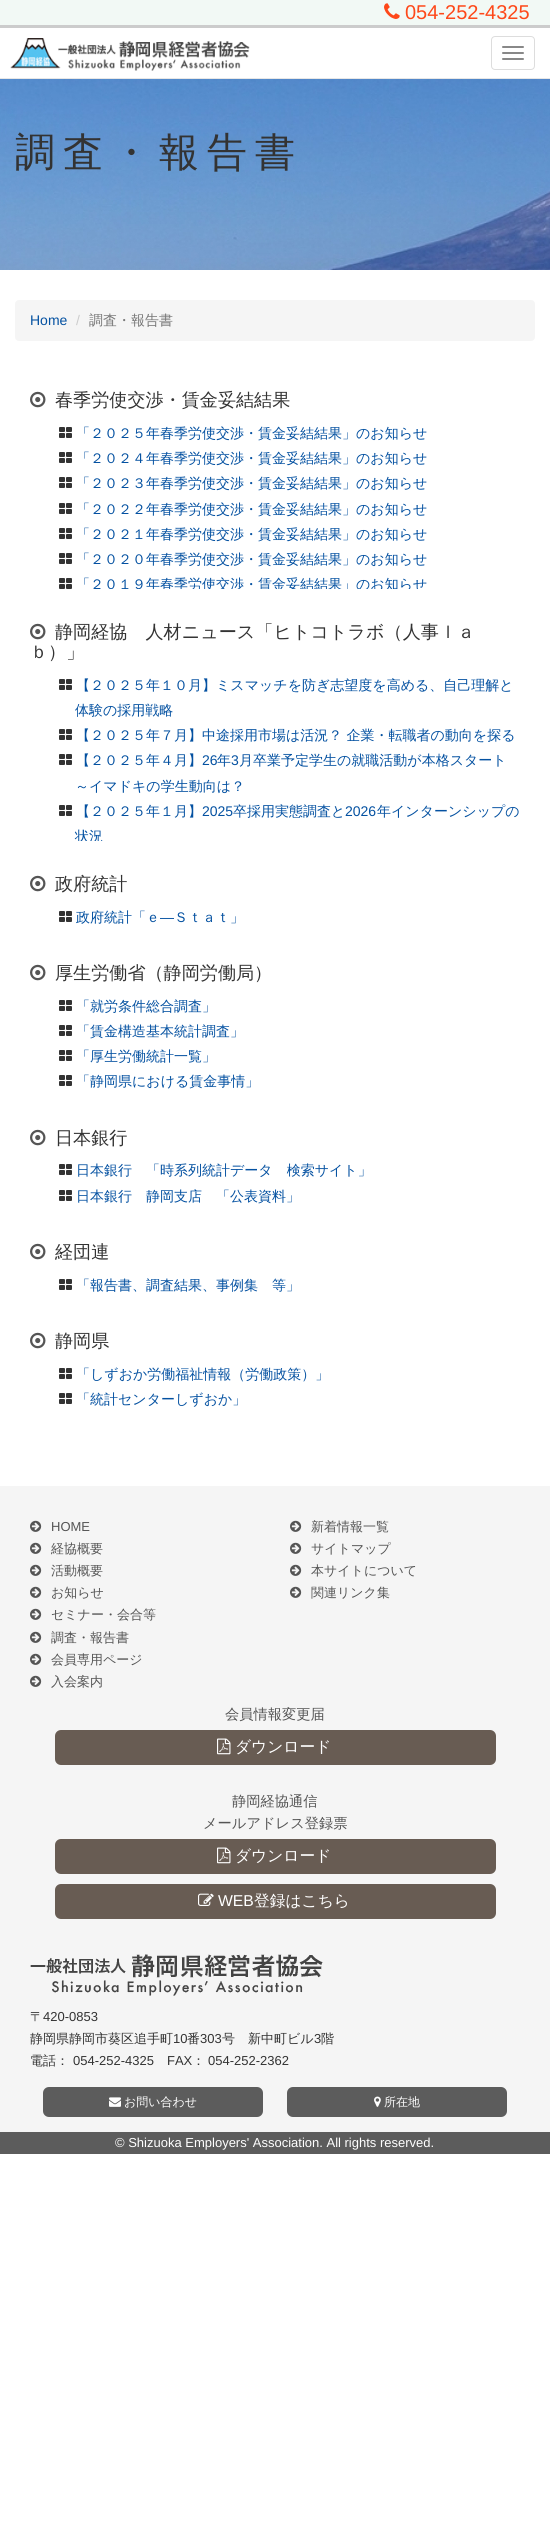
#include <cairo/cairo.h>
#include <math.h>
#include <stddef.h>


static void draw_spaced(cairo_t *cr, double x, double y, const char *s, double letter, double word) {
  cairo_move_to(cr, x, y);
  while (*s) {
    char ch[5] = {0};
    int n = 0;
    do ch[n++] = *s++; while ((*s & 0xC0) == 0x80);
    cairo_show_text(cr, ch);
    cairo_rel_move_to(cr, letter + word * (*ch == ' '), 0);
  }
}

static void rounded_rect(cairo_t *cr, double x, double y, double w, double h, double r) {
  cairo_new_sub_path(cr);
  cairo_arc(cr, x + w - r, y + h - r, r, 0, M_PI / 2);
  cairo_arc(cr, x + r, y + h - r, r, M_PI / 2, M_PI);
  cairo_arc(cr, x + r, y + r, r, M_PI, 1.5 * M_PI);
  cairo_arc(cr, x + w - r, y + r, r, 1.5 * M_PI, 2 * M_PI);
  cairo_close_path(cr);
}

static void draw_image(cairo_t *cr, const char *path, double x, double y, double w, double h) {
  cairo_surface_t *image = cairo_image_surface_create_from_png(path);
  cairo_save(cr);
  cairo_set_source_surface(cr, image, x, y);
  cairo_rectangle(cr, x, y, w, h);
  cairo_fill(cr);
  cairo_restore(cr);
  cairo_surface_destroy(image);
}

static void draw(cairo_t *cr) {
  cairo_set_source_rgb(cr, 1, 1, 1);
  cairo_paint(cr);
  cairo_set_source_rgb(cr, 231 / 255.0, 231 / 255.0, 231 / 255.0);
  cairo_rectangle(cr, 0, 78, 550, 1);
  cairo_fill(cr);
  cairo_set_source_rgb(cr, 242 / 255.0, 249 / 255.0, 245 / 255.0);
  cairo_rectangle(cr, 0, 0, 550, 25);
  cairo_fill(cr);
  cairo_set_source_rgb(cr, 204 / 255.0, 204 / 255.0, 204 / 255.0);
  cairo_rectangle(cr, 0, 25, 550, 3);
  cairo_fill(cr);
  draw_image(cr, "images/1.png", 384, 3, 16, 16);
  draw_image(cr, "images/2.png", 10, 38, 240, 33);
  rounded_rect(cr, 491.5, 36.5, 43, 33, 3.5);
  cairo_set_source_rgb(cr, 221 / 255.0, 221 / 255.0, 221 / 255.0);
  cairo_set_line_width(cr, 1);
  cairo_stroke(cr);
  cairo_set_source_rgb(cr, 136 / 255.0, 136 / 255.0, 136 / 255.0);
  rounded_rect(cr, 502, 46, 22, 2, 1);
  cairo_fill(cr);
  rounded_rect(cr, 502, 52, 22, 2, 1);
  cairo_fill(cr);
  rounded_rect(cr, 502, 58, 22, 2, 1);
  cairo_fill(cr);
  draw_image(cr, "images/3.png", 0, 79, 550, 191);
  cairo_set_source_rgb(cr, 245 / 255.0, 245 / 255.0, 245 / 255.0);
  rounded_rect(cr, 15, 300, 520, 41, 4);
  cairo_fill(cr);
  draw_image(cr, "images/4.png", 30, 391, 16, 17);
  draw_image(cr, "images/5.png", 59, 427, 13, 11);
  draw_image(cr, "images/5.png", 59, 452, 13, 11);
  draw_image(cr, "images/5.png", 59, 477, 13, 11);
  draw_image(cr, "images/5.png", 59, 503, 13, 11);
  draw_image(cr, "images/5.png", 59, 528, 13, 11);
  draw_image(cr, "images/5.png", 59, 553, 13, 11);
  draw_image(cr, "images/5.png", 59, 578, 13, 11);
  draw_image(cr, "images/4.png", 30, 623, 16, 17);
  draw_image(cr, "images/5.png", 59, 679, 13, 11);
  draw_image(cr, "images/5.png", 59, 729, 13, 11);
  draw_image(cr, "images/5.png", 59, 754, 13, 11);
  draw_image(cr, "images/5.png", 59, 805, 13, 11);
  draw_image(cr, "images/4.png", 30, 875, 16, 17);
  draw_image(cr, "images/5.png", 59, 911, 13, 11);
  draw_image(cr, "images/4.png", 30, 964, 16, 17);
  draw_image(cr, "images/5.png", 59, 1000, 13, 11);
  draw_image(cr, "images/5.png", 59, 1025, 13, 11);
  draw_image(cr, "images/5.png", 59, 1050, 13, 11);
  draw_image(cr, "images/5.png", 59, 1075, 13, 11);
  draw_image(cr, "images/4.png", 30, 1129, 16, 17);
  draw_image(cr, "images/5.png", 59, 1164, 13, 11);
  draw_image(cr, "images/5.png", 59, 1190, 13, 11);
  draw_image(cr, "images/4.png", 30, 1243, 16, 17);
  draw_image(cr, "images/5.png", 59, 1279, 13, 11);
  draw_image(cr, "images/4.png", 30, 1332, 16, 17);
  draw_image(cr, "images/5.png", 59, 1368, 13, 11);
  draw_image(cr, "images/5.png", 59, 1393, 13, 11);
  cairo_rectangle(cr, 0, 1486, 550, 646);
  cairo_fill(cr);
  draw_image(cr, "images/6.png", 30, 1520, 12, 12);
  draw_image(cr, "images/6.png", 30, 1542, 12, 12);
  draw_image(cr, "images/6.png", 30, 1564, 12, 12);
  draw_image(cr, "images/6.png", 30, 1586, 12, 12);
  draw_image(cr, "images/6.png", 30, 1608, 12, 12);
  draw_image(cr, "images/6.png", 30, 1631, 12, 12);
  draw_image(cr, "images/6.png", 30, 1653, 12, 12);
  draw_image(cr, "images/6.png", 30, 1675, 12, 12);
  draw_image(cr, "images/6.png", 290, 1520, 12, 12);
  draw_image(cr, "images/6.png", 290, 1542, 12, 12);
  draw_image(cr, "images/6.png", 290, 1564, 12, 12);
  draw_image(cr, "images/6.png", 290, 1586, 12, 12);
  cairo_set_source_rgb(cr, 104 / 255.0, 92 / 255.0, 83 / 255.0);
  rounded_rect(cr, 55, 1730, 441, 35, 6);
  cairo_fill(cr);
  draw_image(cr, "images/7.png", 217, 1738, 14, 17);
  rounded_rect(cr, 55, 1839, 441, 35, 6);
  cairo_fill(cr);
  draw_image(cr, "images/7.png", 217, 1847, 14, 17);
  rounded_rect(cr, 55, 1884, 441, 35, 6);
  cairo_fill(cr);
  draw_image(cr, "images/8.png", 198, 1893, 16, 13);
  draw_image(cr, "images/9.png", 30, 1954, 293, 42);
  cairo_set_source_rgb(cr, 92 / 255.0, 92 / 255.0, 92 / 255.0);
  rounded_rect(cr, 43, 2087, 220, 30, 6);
  cairo_fill(cr);
  draw_image(cr, "images/10.png", 109, 2097, 12, 10);
  rounded_rect(cr, 287, 2087, 220, 30, 6);
  cairo_fill(cr);
  draw_image(cr, "images/11.png", 374, 2096, 7, 11);
  cairo_rectangle(cr, 0, 2132, 550, 22);
  cairo_fill(cr);
  cairo_select_font_face(cr, "Liberation Sans", CAIRO_FONT_SLANT_NORMAL, CAIRO_FONT_WEIGHT_NORMAL);
  cairo_set_font_size(cr, 20);
  cairo_set_source_rgb(cr, 254 / 255.0, 72 / 255.0, 25 / 255.0);
  cairo_move_to(cr, 405, 19);
  cairo_show_text(cr, "054-252-4325");
  cairo_select_font_face(cr, "WenQuanYi Zen Hei Medium", CAIRO_FONT_SLANT_NORMAL, CAIRO_FONT_WEIGHT_NORMAL);
  cairo_set_font_size(cr, 40);
  cairo_set_source_rgb(cr, 51 / 255.0, 51 / 255.0, 51 / 255.0);
  draw_spaced(cr, 15, 166, "調査・報告書", 8, 0);
  cairo_select_font_face(cr, "Liberation Sans", CAIRO_FONT_SLANT_NORMAL, CAIRO_FONT_WEIGHT_NORMAL);
  cairo_set_font_size(cr, 14);
  cairo_set_source_rgb(cr, 4 / 255.0, 81 / 255.0, 161 / 255.0);
  cairo_move_to(cr, 30, 325);
  cairo_show_text(cr, "Home");
  cairo_set_source_rgb(cr, 204 / 255.0, 204 / 255.0, 204 / 255.0);
  cairo_move_to(cr, 76, 325);
  cairo_show_text(cr, "/");
  cairo_select_font_face(cr, "WenQuanYi Zen Hei Medium", CAIRO_FONT_SLANT_NORMAL, CAIRO_FONT_WEIGHT_NORMAL);
  cairo_set_source_rgb(cr, 119 / 255.0, 119 / 255.0, 119 / 255.0);
  cairo_move_to(cr, 89, 325);
  cairo_show_text(cr, "調査・報告書");
  cairo_set_font_size(cr, 18.1);
  cairo_set_source_rgb(cr, 51 / 255.0, 51 / 255.0, 51 / 255.0);
  cairo_move_to(cr, 55, 406);
  cairo_show_text(cr, "春季労使交渉・賃金妥結結果");
  cairo_set_font_size(cr, 14);
  cairo_set_source_rgb(cr, 4 / 255.0, 81 / 255.0, 161 / 255.0);
  cairo_move_to(cr, 76, 438);
  cairo_show_text(cr, "「２０２５年春季労使交渉・賃金妥結結果」のお知らせ");
  cairo_move_to(cr, 76, 463);
  cairo_show_text(cr, "「２０２４年春季労使交渉・賃金妥結結果」のお知らせ");
  cairo_move_to(cr, 76, 488);
  cairo_show_text(cr, "「２０２３年春季労使交渉・賃金妥結結果」のお知らせ");
  cairo_move_to(cr, 76, 514);
  cairo_show_text(cr, "「２０２２年春季労使交渉・賃金妥結結果」のお知らせ");
  cairo_move_to(cr, 76, 539);
  cairo_show_text(cr, "「２０２１年春季労使交渉・賃金妥結結果」のお知らせ");
  cairo_move_to(cr, 76, 564);
  cairo_show_text(cr, "「２０２０年春季労使交渉・賃金妥結結果」のお知らせ");
  cairo_save(cr);
  cairo_rectangle(cr, 0, 421, 550, 168);
  cairo_clip(cr);
  cairo_move_to(cr, 76, 589);
  cairo_show_text(cr, "「２０１９年春季労使交渉・賃金妥結結果」のお知らせ");
  cairo_restore(cr);
  cairo_set_font_size(cr, 18.1);
  cairo_set_source_rgb(cr, 51 / 255.0, 51 / 255.0, 51 / 255.0);
  cairo_move_to(cr, 55, 638);
  cairo_show_text(cr, "静岡経協　人材ニュース「ヒトコトラボ（人事ｌａ");
  cairo_move_to(cr, 30, 658);
  cairo_show_text(cr, "ｂ）」");
  cairo_set_font_size(cr, 14);
  cairo_set_source_rgb(cr, 4 / 255.0, 81 / 255.0, 161 / 255.0);
  cairo_move_to(cr, 76, 690);
  cairo_show_text(cr, "【２０２５年１０月】ミスマッチを防ぎ志望度を高める、自己理解と");
  cairo_move_to(cr, 75, 715);
  cairo_show_text(cr, "体験の採用戦略");
  cairo_move_to(cr, 76, 740);
  cairo_show_text(cr, "【２０２５年７月】中途採用市場は活況？ 企業・転職者の動向を探る");
  cairo_move_to(cr, 76, 765);
  cairo_show_text(cr, "【２０２５年４月】");
  cairo_select_font_face(cr, "Liberation Sans", CAIRO_FONT_SLANT_NORMAL, CAIRO_FONT_WEIGHT_NORMAL);
  cairo_move_to(cr, 202, 765);
  cairo_show_text(cr, "26");
  cairo_select_font_face(cr, "WenQuanYi Zen Hei Medium", CAIRO_FONT_SLANT_NORMAL, CAIRO_FONT_WEIGHT_NORMAL);
  cairo_move_to(cr, 217, 765);
  cairo_show_text(cr, "年");
  cairo_select_font_face(cr, "Liberation Sans", CAIRO_FONT_SLANT_NORMAL, CAIRO_FONT_WEIGHT_NORMAL);
  cairo_move_to(cr, 231, 765);
  cairo_show_text(cr, "3");
  cairo_select_font_face(cr, "WenQuanYi Zen Hei Medium", CAIRO_FONT_SLANT_NORMAL, CAIRO_FONT_WEIGHT_NORMAL);
  cairo_move_to(cr, 239, 765);
  cairo_show_text(cr, "月卒業予定学生の就職活動が本格スタート");
  cairo_move_to(cr, 75, 791);
  cairo_show_text(cr, "～イマドキの学生動向は？");
  cairo_move_to(cr, 76, 816);
  cairo_show_text(cr, "【２０２５年１月】");
  cairo_select_font_face(cr, "Liberation Sans", CAIRO_FONT_SLANT_NORMAL, CAIRO_FONT_WEIGHT_NORMAL);
  cairo_move_to(cr, 202, 816);
  cairo_show_text(cr, "2025");
  cairo_select_font_face(cr, "WenQuanYi Zen Hei Medium", CAIRO_FONT_SLANT_NORMAL, CAIRO_FONT_WEIGHT_NORMAL);
  cairo_move_to(cr, 233, 816);
  cairo_show_text(cr, "卒採用実態調査と");
  cairo_select_font_face(cr, "Liberation Sans", CAIRO_FONT_SLANT_NORMAL, CAIRO_FONT_WEIGHT_NORMAL);
  cairo_move_to(cr, 345, 816);
  cairo_show_text(cr, "2026");
  cairo_select_font_face(cr, "WenQuanYi Zen Hei Medium", CAIRO_FONT_SLANT_NORMAL, CAIRO_FONT_WEIGHT_NORMAL);
  cairo_move_to(cr, 377, 816);
  cairo_show_text(cr, "年インターンシップの");
  cairo_save(cr);
  cairo_rectangle(cr, 0, 673, 550, 168);
  cairo_clip(cr);
  cairo_move_to(cr, 75, 841);
  cairo_show_text(cr, "状況");
  cairo_restore(cr);
  cairo_set_font_size(cr, 18.1);
  cairo_set_source_rgb(cr, 51 / 255.0, 51 / 255.0, 51 / 255.0);
  cairo_move_to(cr, 55, 890);
  cairo_show_text(cr, "政府統計");
  cairo_set_font_size(cr, 14);
  cairo_set_source_rgb(cr, 4 / 255.0, 81 / 255.0, 161 / 255.0);
  cairo_move_to(cr, 76, 922);
  cairo_show_text(cr, "政府統計「ｅ");
  cairo_select_font_face(cr, "Liberation Sans", CAIRO_FONT_SLANT_NORMAL, CAIRO_FONT_WEIGHT_NORMAL);
  cairo_move_to(cr, 160, 922);
  cairo_show_text(cr, "―");
  cairo_select_font_face(cr, "WenQuanYi Zen Hei Medium", CAIRO_FONT_SLANT_NORMAL, CAIRO_FONT_WEIGHT_NORMAL);
  cairo_move_to(cr, 174, 922);
  cairo_show_text(cr, "Ｓｔａｔ」");
  cairo_set_font_size(cr, 18.1);
  cairo_set_source_rgb(cr, 51 / 255.0, 51 / 255.0, 51 / 255.0);
  cairo_move_to(cr, 55, 979);
  cairo_show_text(cr, "厚生労働省（静岡労働局）");
  cairo_set_font_size(cr, 14);
  cairo_set_source_rgb(cr, 4 / 255.0, 81 / 255.0, 161 / 255.0);
  cairo_move_to(cr, 76, 1011);
  cairo_show_text(cr, "「就労条件総合調査」");
  cairo_move_to(cr, 76, 1036);
  cairo_show_text(cr, "「賃金構造基本統計調査」");
  cairo_move_to(cr, 76, 1061);
  cairo_show_text(cr, "「厚生労働統計一覧」");
  cairo_move_to(cr, 76, 1086);
  cairo_show_text(cr, "「静岡県における賃金事情」");
  cairo_set_font_size(cr, 18.1);
  cairo_set_source_rgb(cr, 51 / 255.0, 51 / 255.0, 51 / 255.0);
  cairo_move_to(cr, 55, 1144);
  cairo_show_text(cr, "日本銀行");
  cairo_set_font_size(cr, 14);
  cairo_set_source_rgb(cr, 4 / 255.0, 81 / 255.0, 161 / 255.0);
  cairo_move_to(cr, 76, 1175);
  cairo_show_text(cr, "日本銀行　「時系列統計データ　検索サイト」");
  cairo_move_to(cr, 76, 1201);
  cairo_show_text(cr, "日本銀行　静岡支店　「公表資料」");
  cairo_set_font_size(cr, 18.1);
  cairo_set_source_rgb(cr, 51 / 255.0, 51 / 255.0, 51 / 255.0);
  cairo_move_to(cr, 55, 1258);
  cairo_show_text(cr, "経団連");
  cairo_set_font_size(cr, 14);
  cairo_set_source_rgb(cr, 4 / 255.0, 81 / 255.0, 161 / 255.0);
  cairo_move_to(cr, 76, 1290);
  cairo_show_text(cr, "「報告書、調査結果、事例集　等」");
  cairo_set_font_size(cr, 18.1);
  cairo_set_source_rgb(cr, 51 / 255.0, 51 / 255.0, 51 / 255.0);
  cairo_move_to(cr, 55, 1347);
  cairo_show_text(cr, "静岡県");
  cairo_set_font_size(cr, 14);
  cairo_set_source_rgb(cr, 4 / 255.0, 81 / 255.0, 161 / 255.0);
  cairo_move_to(cr, 76, 1379);
  cairo_show_text(cr, "「しずおか労働福祉情報（労働政策）」");
  cairo_move_to(cr, 76, 1404);
  cairo_show_text(cr, "「統計センターしずおか」");
  cairo_select_font_face(cr, "Liberation Sans", CAIRO_FONT_SLANT_NORMAL, CAIRO_FONT_WEIGHT_NORMAL);
  cairo_set_font_size(cr, 13);
  cairo_set_source_rgb(cr, 85 / 255.0, 85 / 255.0, 85 / 255.0);
  cairo_move_to(cr, 51, 1531);
  cairo_show_text(cr, "HOME");
  cairo_select_font_face(cr, "WenQuanYi Zen Hei Medium", CAIRO_FONT_SLANT_NORMAL, CAIRO_FONT_WEIGHT_NORMAL);
  cairo_move_to(cr, 51, 1553);
  cairo_show_text(cr, "経協概要");
  cairo_move_to(cr, 51, 1575);
  cairo_show_text(cr, "活動概要");
  cairo_move_to(cr, 51, 1597);
  cairo_show_text(cr, "お知らせ");
  cairo_move_to(cr, 51, 1619);
  cairo_show_text(cr, "セミナー・会合等");
  cairo_move_to(cr, 51, 1642);
  cairo_show_text(cr, "調査・報告書");
  cairo_move_to(cr, 51, 1664);
  cairo_show_text(cr, "会員専用ページ");
  cairo_move_to(cr, 51, 1686);
  cairo_show_text(cr, "入会案内");
  cairo_move_to(cr, 311, 1531);
  cairo_show_text(cr, "新着情報一覧");
  cairo_move_to(cr, 311, 1553);
  cairo_show_text(cr, "サイトマップ");
  cairo_move_to(cr, 311, 1575);
  cairo_show_text(cr, "本サイトについて");
  cairo_move_to(cr, 311, 1597);
  cairo_show_text(cr, "関連リンク集");
  cairo_set_font_size(cr, 14.25);
  cairo_move_to(cr, 225, 1719);
  cairo_show_text(cr, "会員情報変更届");
  cairo_set_font_size(cr, 15.75);
  cairo_set_source_rgb(cr, 1, 1, 1);
  cairo_move_to(cr, 235, 1752);
  cairo_show_text(cr, "ダウンロード");
  cairo_set_font_size(cr, 14.25);
  cairo_set_source_rgb(cr, 85 / 255.0, 85 / 255.0, 85 / 255.0);
  cairo_move_to(cr, 232, 1806);
  cairo_show_text(cr, "静岡経協通信");
  cairo_move_to(cr, 203, 1828);
  cairo_show_text(cr, "メールアドレス登録票");
  cairo_set_font_size(cr, 15.75);
  cairo_set_source_rgb(cr, 1, 1, 1);
  cairo_move_to(cr, 235, 1861);
  cairo_show_text(cr, "ダウンロード");
  cairo_select_font_face(cr, "Liberation Sans", CAIRO_FONT_SLANT_NORMAL, CAIRO_FONT_WEIGHT_NORMAL);
  cairo_move_to(cr, 218, 1906);
  cairo_show_text(cr, "WEB");
  cairo_select_font_face(cr, "WenQuanYi Zen Hei Medium", CAIRO_FONT_SLANT_NORMAL, CAIRO_FONT_WEIGHT_NORMAL);
  cairo_move_to(cr, 254, 1906);
  cairo_show_text(cr, "登録はこちら");
  cairo_set_font_size(cr, 13);
  cairo_set_source_rgb(cr, 51 / 255.0, 51 / 255.0, 51 / 255.0);
  cairo_move_to(cr, 30, 2021);
  cairo_show_text(cr, "〒");
  cairo_select_font_face(cr, "Liberation Sans", CAIRO_FONT_SLANT_NORMAL, CAIRO_FONT_WEIGHT_NORMAL);
  cairo_move_to(cr, 43, 2021);
  cairo_show_text(cr, "420-0853");
  cairo_select_font_face(cr, "WenQuanYi Zen Hei Medium", CAIRO_FONT_SLANT_NORMAL, CAIRO_FONT_WEIGHT_NORMAL);
  cairo_move_to(cr, 30, 2043);
  cairo_show_text(cr, "静岡県静岡市葵区追手町");
  cairo_select_font_face(cr, "Liberation Sans", CAIRO_FONT_SLANT_NORMAL, CAIRO_FONT_WEIGHT_NORMAL);
  cairo_move_to(cr, 173, 2043);
  cairo_show_text(cr, "10");
  cairo_select_font_face(cr, "WenQuanYi Zen Hei Medium", CAIRO_FONT_SLANT_NORMAL, CAIRO_FONT_WEIGHT_NORMAL);
  cairo_move_to(cr, 187, 2043);
  cairo_show_text(cr, "番");
  cairo_select_font_face(cr, "Liberation Sans", CAIRO_FONT_SLANT_NORMAL, CAIRO_FONT_WEIGHT_NORMAL);
  cairo_move_to(cr, 200, 2043);
  cairo_show_text(cr, "303");
  cairo_select_font_face(cr, "WenQuanYi Zen Hei Medium", CAIRO_FONT_SLANT_NORMAL, CAIRO_FONT_WEIGHT_NORMAL);
  cairo_move_to(cr, 222, 2043);
  cairo_show_text(cr, "号　新中町ビル");
  cairo_select_font_face(cr, "Liberation Sans", CAIRO_FONT_SLANT_NORMAL, CAIRO_FONT_WEIGHT_NORMAL);
  cairo_move_to(cr, 314, 2043);
  cairo_show_text(cr, "3");
  cairo_select_font_face(cr, "WenQuanYi Zen Hei Medium", CAIRO_FONT_SLANT_NORMAL, CAIRO_FONT_WEIGHT_NORMAL);
  cairo_move_to(cr, 321, 2043);
  cairo_show_text(cr, "階");
  cairo_move_to(cr, 30, 2065);
  cairo_show_text(cr, "電話：");
  cairo_select_font_face(cr, "Liberation Sans", CAIRO_FONT_SLANT_NORMAL, CAIRO_FONT_WEIGHT_NORMAL);
  cairo_move_to(cr, 73, 2065);
  cairo_show_text(cr, "054-252-4325");
  cairo_move_to(cr, 167, 2065);
  cairo_show_text(cr, "FAX");
  cairo_select_font_face(cr, "WenQuanYi Zen Hei Medium", CAIRO_FONT_SLANT_NORMAL, CAIRO_FONT_WEIGHT_NORMAL);
  cairo_move_to(cr, 192, 2065);
  cairo_show_text(cr, "：");
  cairo_select_font_face(cr, "Liberation Sans", CAIRO_FONT_SLANT_NORMAL, CAIRO_FONT_WEIGHT_NORMAL);
  cairo_move_to(cr, 208, 2065);
  cairo_show_text(cr, "054-252-2362");
  cairo_select_font_face(cr, "WenQuanYi Zen Hei Medium", CAIRO_FONT_SLANT_NORMAL, CAIRO_FONT_WEIGHT_NORMAL);
  cairo_set_font_size(cr, 12);
  cairo_set_source_rgb(cr, 1, 1, 1);
  cairo_move_to(cr, 124, 2106);
  cairo_show_text(cr, "お問い合わせ");
  cairo_move_to(cr, 384, 2106);
  cairo_show_text(cr, "所在地");
  cairo_select_font_face(cr, "Liberation Sans", CAIRO_FONT_SLANT_NORMAL, CAIRO_FONT_WEIGHT_NORMAL);
  cairo_set_font_size(cr, 13);
  cairo_move_to(cr, 115, 2147);
  cairo_show_text(cr, "© Shizuoka Employers' Association. All rights reserved.");
}

int main(void) {
  cairo_surface_t *surface = cairo_image_surface_create(CAIRO_FORMAT_RGB24, 550, 2547);
  cairo_t *cr = cairo_create(surface);
  cairo_font_options_t *options = cairo_font_options_create();
  cairo_font_options_set_hint_metrics(options, CAIRO_HINT_METRICS_OFF);
  cairo_font_options_set_hint_style(options, CAIRO_HINT_STYLE_NONE);
  cairo_set_font_options(cr, options);
  cairo_set_miter_limit(cr, 4);
  draw(cr);
  cairo_surface_write_to_png(surface, "out.png");
  cairo_font_options_destroy(options);
  cairo_destroy(cr);
  cairo_surface_destroy(surface);
  return 0;
}
